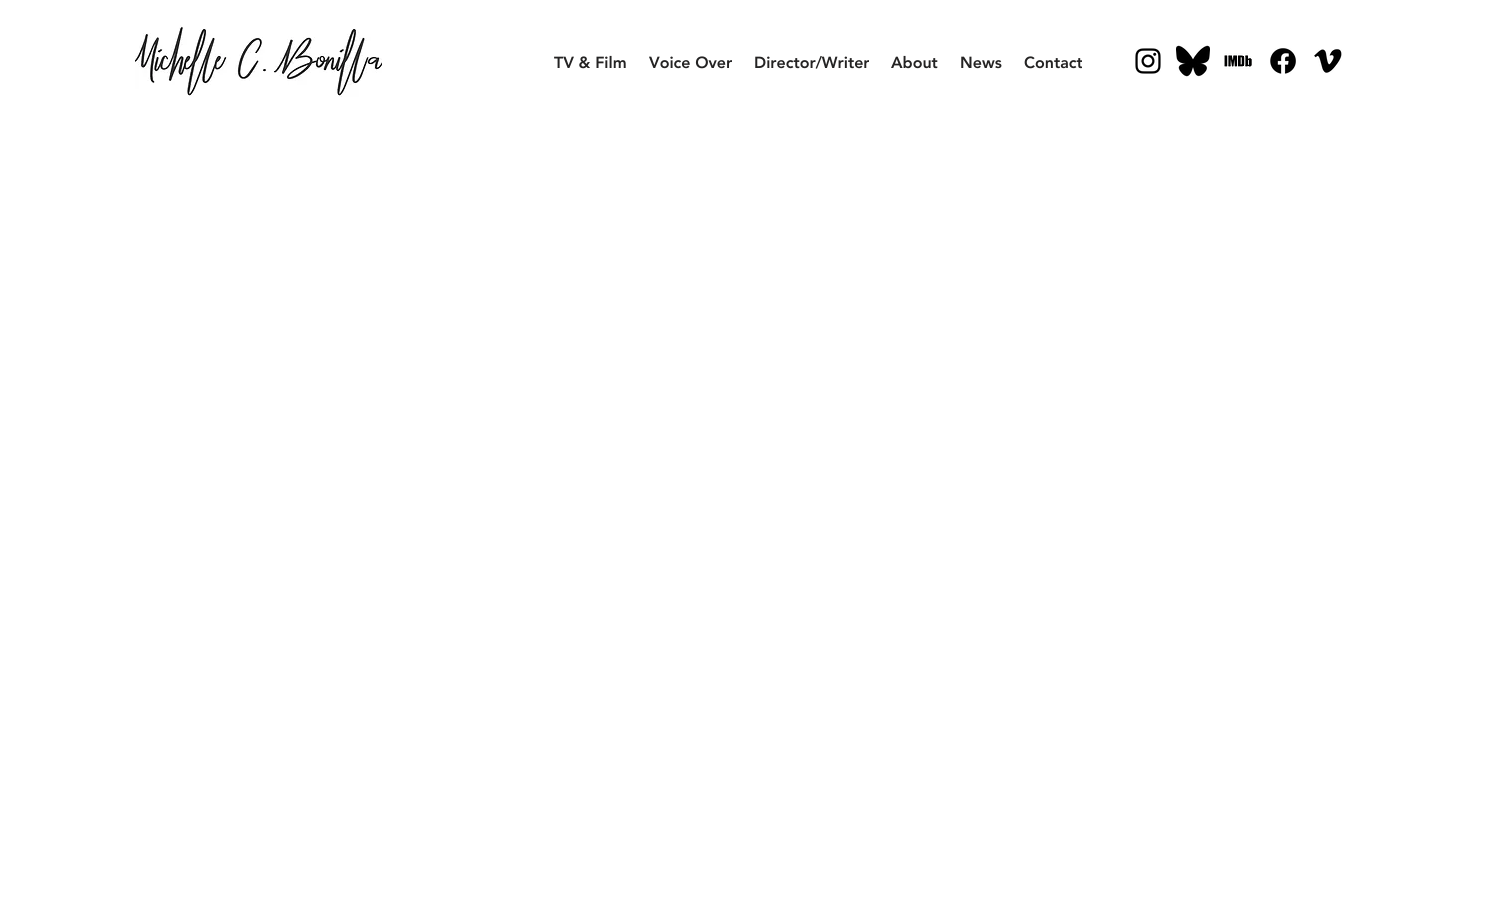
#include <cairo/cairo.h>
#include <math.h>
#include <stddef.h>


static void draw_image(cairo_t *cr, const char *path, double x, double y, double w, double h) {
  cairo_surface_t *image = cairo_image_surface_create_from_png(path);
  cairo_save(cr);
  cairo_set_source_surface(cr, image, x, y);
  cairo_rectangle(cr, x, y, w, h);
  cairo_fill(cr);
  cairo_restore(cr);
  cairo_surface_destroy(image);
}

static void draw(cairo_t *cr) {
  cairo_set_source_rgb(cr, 1, 1, 1);
  cairo_paint(cr);
  draw_image(cr, "images/1.png", 135, 25, 247, 72);
  draw_image(cr, "images/2.png", 1135, 48, 26, 26);
  draw_image(cr, "images/3.png", 1176, 45, 34, 32);
  draw_image(cr, "images/4.png", 1224, 53, 28, 16);
  draw_image(cr, "images/5.png", 1270, 48, 26, 26);
  draw_image(cr, "images/6.png", 1314, 49, 28, 24);
  cairo_select_font_face(cr, "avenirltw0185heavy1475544 Black", CAIRO_FONT_SLANT_NORMAL, CAIRO_FONT_WEIGHT_NORMAL);
  cairo_set_font_size(cr, 16);
  cairo_set_source_rgb(cr, 36 / 255.0, 35 / 255.0, 35 / 255.0);
  cairo_move_to(cr, 554, 68);
  cairo_show_text(cr, "TV & Film");
  cairo_move_to(cr, 649, 68);
  cairo_show_text(cr, "Voice Over");
  cairo_move_to(cr, 754, 68);
  cairo_show_text(cr, "Director/Writer");
  cairo_move_to(cr, 891, 68);
  cairo_show_text(cr, "About");
  cairo_move_to(cr, 960, 68);
  cairo_show_text(cr, "News");
  cairo_move_to(cr, 1024, 68);
  cairo_show_text(cr, "Contact");
}

int main(void) {
  cairo_surface_t *surface = cairo_image_surface_create(CAIRO_FORMAT_RGB24, 1496, 914);
  cairo_t *cr = cairo_create(surface);
  cairo_font_options_t *options = cairo_font_options_create();
  cairo_font_options_set_hint_metrics(options, CAIRO_HINT_METRICS_OFF);
  cairo_font_options_set_hint_style(options, CAIRO_HINT_STYLE_NONE);
  cairo_set_font_options(cr, options);
  cairo_set_miter_limit(cr, 4);
  draw(cr);
  cairo_surface_write_to_png(surface, "out.png");
  cairo_font_options_destroy(options);
  cairo_destroy(cr);
  cairo_surface_destroy(surface);
  return 0;
}
